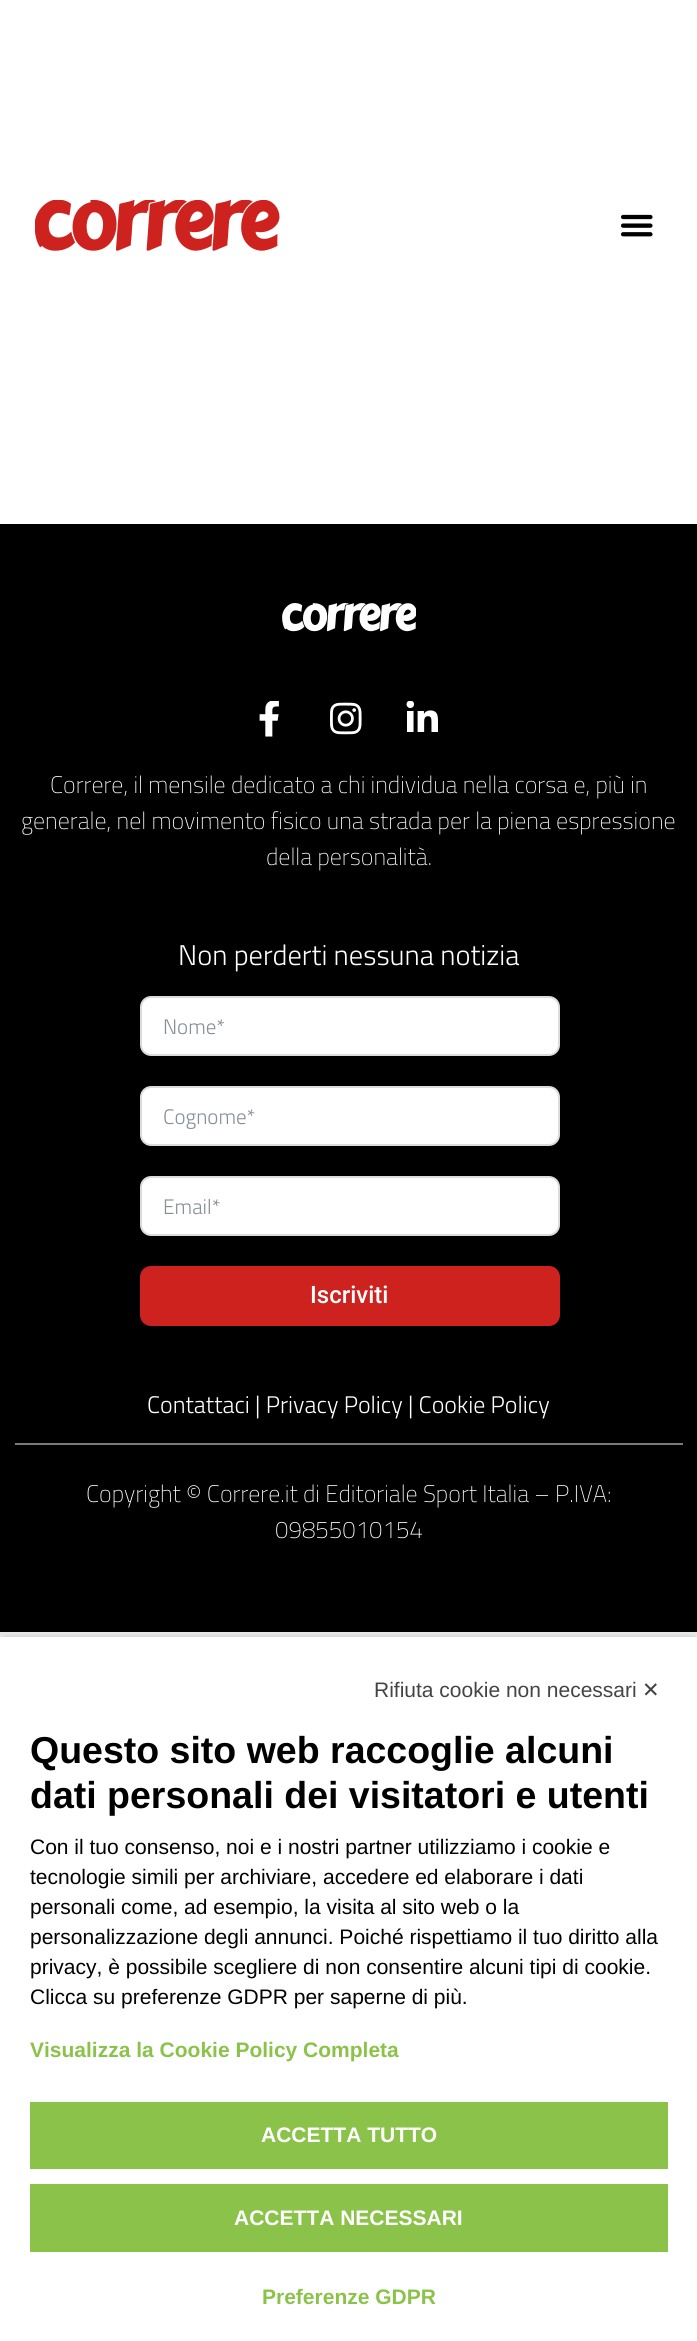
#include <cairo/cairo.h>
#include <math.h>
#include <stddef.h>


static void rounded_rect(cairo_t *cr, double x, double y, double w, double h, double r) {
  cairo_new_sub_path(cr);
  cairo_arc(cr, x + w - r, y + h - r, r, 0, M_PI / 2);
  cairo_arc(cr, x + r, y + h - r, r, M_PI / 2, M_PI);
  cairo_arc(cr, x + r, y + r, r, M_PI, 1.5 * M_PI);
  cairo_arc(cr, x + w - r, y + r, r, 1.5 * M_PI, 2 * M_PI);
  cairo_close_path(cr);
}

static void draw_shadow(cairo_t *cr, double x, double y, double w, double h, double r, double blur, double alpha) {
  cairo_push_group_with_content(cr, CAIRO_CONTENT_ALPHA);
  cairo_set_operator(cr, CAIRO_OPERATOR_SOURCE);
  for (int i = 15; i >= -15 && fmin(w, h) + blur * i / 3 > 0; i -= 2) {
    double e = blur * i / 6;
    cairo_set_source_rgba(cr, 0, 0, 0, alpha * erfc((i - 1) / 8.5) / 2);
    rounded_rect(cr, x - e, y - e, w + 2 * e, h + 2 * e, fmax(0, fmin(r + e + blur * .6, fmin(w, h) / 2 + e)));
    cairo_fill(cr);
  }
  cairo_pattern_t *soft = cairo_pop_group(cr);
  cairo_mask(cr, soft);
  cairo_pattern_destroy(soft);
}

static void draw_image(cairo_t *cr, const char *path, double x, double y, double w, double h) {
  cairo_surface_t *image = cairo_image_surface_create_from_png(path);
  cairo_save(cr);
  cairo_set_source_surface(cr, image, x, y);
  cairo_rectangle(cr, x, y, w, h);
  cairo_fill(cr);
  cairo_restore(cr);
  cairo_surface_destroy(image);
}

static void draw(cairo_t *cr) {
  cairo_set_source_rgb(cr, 1, 1, 1);
  cairo_paint(cr);
  draw_image(cr, "images/1.png", 35, 200, 245, 51);
  draw_image(cr, "images/2.png", 621, 214, 32, 23);
  cairo_set_source_rgb(cr, 0, 0, 0);
  cairo_rectangle(cr, 0, 524, 697, 1108);
  cairo_fill(cr);
  draw_image(cr, "images/3.png", 282, 603, 134, 29);
  draw_image(cr, "images/4.png", 259, 701, 20, 36);
  draw_image(cr, "images/5.png", 330, 702, 32, 33);
  draw_image(cr, "images/6.png", 406, 701, 32, 31);
  cairo_set_source_rgb(cr, 1, 1, 1);
  rounded_rect(cr, 141, 997, 418, 58, 10);
  cairo_fill_preserve(cr);
  cairo_set_source_rgb(cr, 218 / 255.0, 219 / 255.0, 221 / 255.0);
  cairo_stroke(cr);
  cairo_set_source_rgb(cr, 1, 1, 1);
  rounded_rect(cr, 141, 1087, 418, 58, 10);
  cairo_fill_preserve(cr);
  cairo_set_source_rgb(cr, 218 / 255.0, 219 / 255.0, 221 / 255.0);
  cairo_stroke(cr);
  cairo_set_source_rgb(cr, 1, 1, 1);
  rounded_rect(cr, 141, 1177, 418, 58, 10);
  cairo_fill_preserve(cr);
  cairo_set_source_rgb(cr, 218 / 255.0, 219 / 255.0, 221 / 255.0);
  cairo_stroke(cr);
  cairo_set_source_rgb(cr, 206 / 255.0, 34 / 255.0, 31 / 255.0);
  rounded_rect(cr, 140, 1266, 420, 60, 11);
  cairo_fill(cr);
  cairo_set_source_rgb(cr, 122 / 255.0, 122 / 255.0, 122 / 255.0);
  cairo_rectangle(cr, 15, 1443, 668, 2);
  cairo_fill(cr);
  cairo_save(cr);
  cairo_rectangle(cr, 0, 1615, 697, 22);
  cairo_clip(cr);
  cairo_set_source_rgb(cr, 0, 0, 0);
  draw_shadow(cr, 0, 1637, 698, 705, 0, 15, 0.27);
  cairo_restore(cr);
  cairo_set_source_rgb(cr, 139 / 255.0, 195 / 255.0, 74 / 255.0);
  cairo_rectangle(cr, 30, 2102, 638, 67);
  cairo_fill(cr);
  cairo_rectangle(cr, 30, 2184, 638, 68);
  cairo_fill(cr);
  cairo_select_font_face(cr, "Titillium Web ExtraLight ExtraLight", CAIRO_FONT_SLANT_NORMAL, CAIRO_FONT_WEIGHT_NORMAL);
  cairo_set_font_size(cr, 24);
  cairo_set_source_rgb(cr, 1, 1, 1);
  cairo_move_to(cr, 50, 793);
  cairo_show_text(cr, "Correre, il mensile dedicato a chi individua nella corsa e, più in");
  cairo_move_to(cr, 21, 829);
  cairo_show_text(cr, "generale, nel movimento fisico una strada per la piena espressione");
  cairo_move_to(cr, 266, 865);
  cairo_show_text(cr, "della personalità.");
  cairo_select_font_face(cr, "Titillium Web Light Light", CAIRO_FONT_SLANT_NORMAL, CAIRO_FONT_WEIGHT_NORMAL);
  cairo_set_font_size(cr, 28.5);
  cairo_move_to(cr, 178, 965);
  cairo_show_text(cr, "Non perderti nessuna notizia");
  cairo_set_font_size(cr, 21);
  cairo_set_source_rgb(cr, 134 / 255.0, 142 / 255.0, 150 / 255.0);
  cairo_move_to(cr, 163, 1034);
  cairo_show_text(cr, "Nome*");
  cairo_move_to(cr, 163, 1124);
  cairo_show_text(cr, "Cognome*");
  cairo_move_to(cr, 163, 1214);
  cairo_show_text(cr, "Email*");
  cairo_select_font_face(cr, "Roboto Medium", CAIRO_FONT_SLANT_NORMAL, CAIRO_FONT_WEIGHT_NORMAL);
  cairo_set_font_size(cr, 24);
  cairo_set_source_rgb(cr, 1, 1, 1);
  cairo_move_to(cr, 310, 1303);
  cairo_show_text(cr, "Iscriviti");
  cairo_select_font_face(cr, "Titillium Web Light Light", CAIRO_FONT_SLANT_NORMAL, CAIRO_FONT_WEIGHT_NORMAL);
  cairo_move_to(cr, 147, 1413);
  cairo_show_text(cr, "Contattaci | Privacy Policy | Cookie Policy");
  cairo_select_font_face(cr, "Titillium Web ExtraLight ExtraLight", CAIRO_FONT_SLANT_NORMAL, CAIRO_FONT_WEIGHT_NORMAL);
  cairo_move_to(cr, 86, 1502);
  cairo_show_text(cr, "Copyright © Correre.it di Editoriale Sport Italia – P.IVA:");
  cairo_move_to(cr, 275, 1538);
  cairo_show_text(cr, "09855010154");
  cairo_select_font_face(cr, "Liberation Sans", CAIRO_FONT_SLANT_NORMAL, CAIRO_FONT_WEIGHT_NORMAL);
  cairo_set_font_size(cr, 21);
  cairo_set_source_rgb(cr, 68 / 255.0, 68 / 255.0, 68 / 255.0);
  cairo_move_to(cr, 374, 1697);
  cairo_show_text(cr, "Rifiuta cookie non necessari");
  cairo_select_font_face(cr, "DejaVu Sans", CAIRO_FONT_SLANT_NORMAL, CAIRO_FONT_WEIGHT_NORMAL);
  cairo_move_to(cr, 642, 1697);
  cairo_show_text(cr, "✕");
  cairo_select_font_face(cr, "Liberation Sans", CAIRO_FONT_SLANT_NORMAL, CAIRO_FONT_WEIGHT_BOLD);
  cairo_set_font_size(cr, 37.5);
  cairo_set_source_rgb(cr, 0, 0, 0);
  cairo_move_to(cr, 30, 1763);
  cairo_show_text(cr, "Questo sito web raccoglie alcuni");
  cairo_move_to(cr, 30, 1808);
  cairo_show_text(cr, "dati personali dei visitatori e utenti");
  cairo_select_font_face(cr, "Liberation Sans", CAIRO_FONT_SLANT_NORMAL, CAIRO_FONT_WEIGHT_NORMAL);
  cairo_set_font_size(cr, 21);
  cairo_move_to(cr, 30, 1854);
  cairo_show_text(cr, "Con il tuo consenso, noi e i nostri partner utilizziamo i cookie e");
  cairo_move_to(cr, 30, 1884);
  cairo_show_text(cr, "tecnologie simili per archiviare, accedere ed elaborare i dati");
  cairo_move_to(cr, 30, 1914);
  cairo_show_text(cr, "personali come, ad esempio, la visita al sito web o la");
  cairo_move_to(cr, 30, 1944);
  cairo_show_text(cr, "personalizzazione degli annunci. Poiché rispettiamo il tuo diritto alla");
  cairo_move_to(cr, 30, 1974);
  cairo_show_text(cr, "privacy, è possibile scegliere di non consentire alcuni tipi di cookie.");
  cairo_move_to(cr, 30, 2004);
  cairo_show_text(cr, "Clicca su preferenze GDPR per saperne di più.");
  cairo_select_font_face(cr, "Liberation Sans", CAIRO_FONT_SLANT_NORMAL, CAIRO_FONT_WEIGHT_BOLD);
  cairo_set_source_rgb(cr, 139 / 255.0, 195 / 255.0, 74 / 255.0);
  cairo_move_to(cr, 30, 2057);
  cairo_show_text(cr, "Visualizza la Cookie Policy Completa");
  cairo_set_source_rgb(cr, 1, 1, 1);
  cairo_move_to(cr, 261, 2142);
  cairo_show_text(cr, "ACCETTA TUTTO");
  cairo_move_to(cr, 234, 2225);
  cairo_show_text(cr, "ACCETTA NECESSARI");
  cairo_set_source_rgb(cr, 139 / 255.0, 195 / 255.0, 74 / 255.0);
  cairo_move_to(cr, 262, 2304);
  cairo_show_text(cr, "Preferenze GDPR");
}

int main(void) {
  cairo_surface_t *surface = cairo_image_surface_create(CAIRO_FORMAT_RGB24, 697, 2341);
  cairo_t *cr = cairo_create(surface);
  cairo_font_options_t *options = cairo_font_options_create();
  cairo_font_options_set_hint_metrics(options, CAIRO_HINT_METRICS_OFF);
  cairo_font_options_set_hint_style(options, CAIRO_HINT_STYLE_NONE);
  cairo_set_font_options(cr, options);
  cairo_set_miter_limit(cr, 4);
  draw(cr);
  cairo_surface_write_to_png(surface, "out.png");
  cairo_font_options_destroy(options);
  cairo_destroy(cr);
  cairo_surface_destroy(surface);
  return 0;
}
